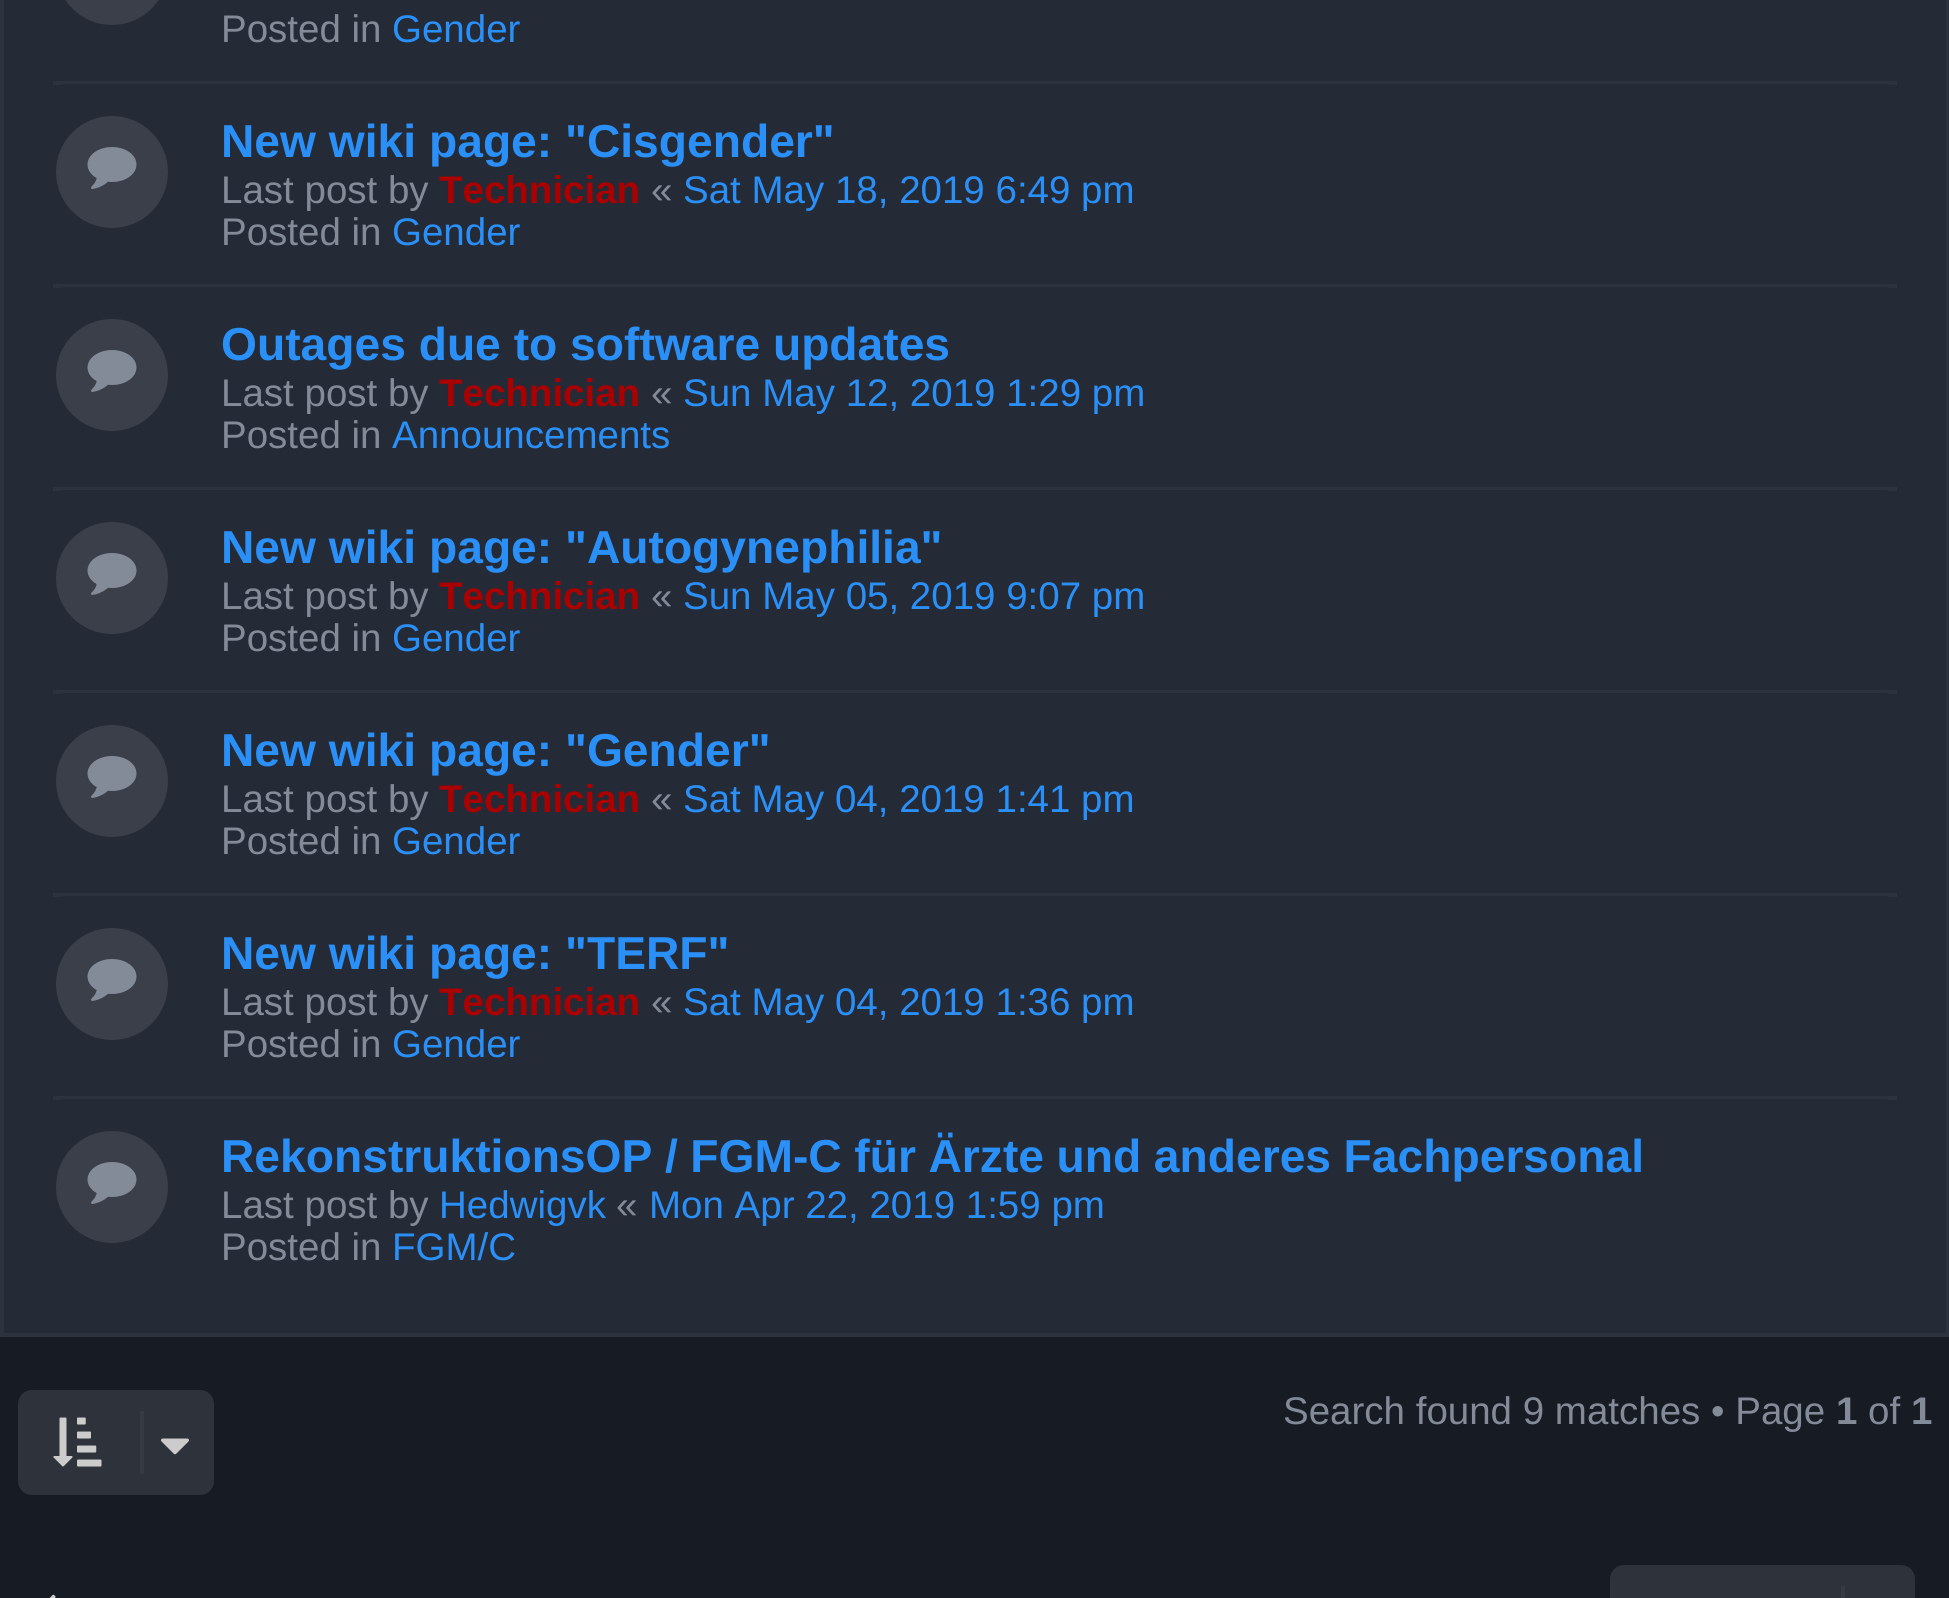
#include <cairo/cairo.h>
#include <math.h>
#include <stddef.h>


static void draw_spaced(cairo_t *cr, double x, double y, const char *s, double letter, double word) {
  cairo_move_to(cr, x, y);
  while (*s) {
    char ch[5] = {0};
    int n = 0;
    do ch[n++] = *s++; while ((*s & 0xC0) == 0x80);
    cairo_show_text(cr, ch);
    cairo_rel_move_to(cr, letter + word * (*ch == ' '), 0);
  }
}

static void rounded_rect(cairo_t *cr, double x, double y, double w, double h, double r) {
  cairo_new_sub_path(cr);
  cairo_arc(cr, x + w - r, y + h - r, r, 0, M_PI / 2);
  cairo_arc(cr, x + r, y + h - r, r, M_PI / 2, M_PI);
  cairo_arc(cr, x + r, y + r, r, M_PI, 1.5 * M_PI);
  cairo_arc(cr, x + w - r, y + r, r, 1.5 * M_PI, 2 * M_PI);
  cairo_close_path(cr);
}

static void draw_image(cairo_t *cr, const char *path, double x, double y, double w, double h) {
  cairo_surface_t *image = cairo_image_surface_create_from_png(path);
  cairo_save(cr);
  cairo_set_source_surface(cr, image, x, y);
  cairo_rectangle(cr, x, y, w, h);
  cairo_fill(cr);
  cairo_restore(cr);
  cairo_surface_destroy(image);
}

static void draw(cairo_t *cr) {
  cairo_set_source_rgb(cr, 23 / 255.0, 27 / 255.0, 36 / 255.0);
  cairo_paint(cr);
  cairo_set_source_rgb(cr, 36 / 255.0, 42 / 255.0, 54 / 255.0);
  cairo_rectangle(cr, 2, -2, 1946, 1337);
  cairo_fill_preserve(cr);
  cairo_set_source_rgb(cr, 45 / 255.0, 51 / 255.0, 62 / 255.0);
  cairo_set_line_width(cr, 4);
  cairo_stroke(cr);
  cairo_rectangle(cr, 53, 81, 1844, 4);
  cairo_fill(cr);
  cairo_set_source_rgb(cr, 58 / 255.0, 63 / 255.0, 74 / 255.0);
  rounded_rect(cr, 56, -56, 112, 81, 56);
  cairo_fill(cr);
  cairo_set_source_rgb(cr, 36 / 255.0, 42 / 255.0, 54 / 255.0);
  rounded_rect(cr, 39, 84, 1872, 203, 28);
  cairo_fill(cr);
  cairo_set_source_rgb(cr, 45 / 255.0, 51 / 255.0, 62 / 255.0);
  cairo_rectangle(cr, 53, 284, 1844, 4);
  cairo_fill(cr);
  cairo_set_source_rgb(cr, 58 / 255.0, 63 / 255.0, 74 / 255.0);
  cairo_arc(cr, 112, 172, 56, 0, 2 * M_PI);
  cairo_fill(cr);
  draw_image(cr, "images/1.png", 87, 147, 50, 42);
  cairo_set_source_rgb(cr, 36 / 255.0, 42 / 255.0, 54 / 255.0);
  rounded_rect(cr, 39, 287, 1872, 203, 28);
  cairo_fill(cr);
  cairo_set_source_rgb(cr, 45 / 255.0, 51 / 255.0, 62 / 255.0);
  cairo_rectangle(cr, 53, 487, 1844, 4);
  cairo_fill(cr);
  cairo_set_source_rgb(cr, 58 / 255.0, 63 / 255.0, 74 / 255.0);
  cairo_arc(cr, 112, 375, 56, 0, 2 * M_PI);
  cairo_fill(cr);
  draw_image(cr, "images/1.png", 87, 350, 50, 42);
  cairo_set_source_rgb(cr, 36 / 255.0, 42 / 255.0, 54 / 255.0);
  rounded_rect(cr, 39, 490, 1872, 203, 28);
  cairo_fill(cr);
  cairo_set_source_rgb(cr, 45 / 255.0, 51 / 255.0, 62 / 255.0);
  cairo_rectangle(cr, 53, 690, 1844, 4);
  cairo_fill(cr);
  cairo_set_source_rgb(cr, 58 / 255.0, 63 / 255.0, 74 / 255.0);
  cairo_arc(cr, 112, 578, 56, 0, 2 * M_PI);
  cairo_fill(cr);
  draw_image(cr, "images/1.png", 87, 553, 50, 42);
  cairo_set_source_rgb(cr, 36 / 255.0, 42 / 255.0, 54 / 255.0);
  rounded_rect(cr, 39, 693, 1872, 203, 28);
  cairo_fill(cr);
  cairo_set_source_rgb(cr, 45 / 255.0, 51 / 255.0, 62 / 255.0);
  cairo_rectangle(cr, 53, 893, 1844, 4);
  cairo_fill(cr);
  cairo_set_source_rgb(cr, 58 / 255.0, 63 / 255.0, 74 / 255.0);
  cairo_arc(cr, 112, 781, 56, 0, 2 * M_PI);
  cairo_fill(cr);
  draw_image(cr, "images/1.png", 87, 756, 50, 42);
  cairo_set_source_rgb(cr, 36 / 255.0, 42 / 255.0, 54 / 255.0);
  rounded_rect(cr, 39, 896, 1872, 203, 28);
  cairo_fill(cr);
  cairo_set_source_rgb(cr, 45 / 255.0, 51 / 255.0, 62 / 255.0);
  cairo_rectangle(cr, 53, 1096, 1844, 4);
  cairo_fill(cr);
  cairo_set_source_rgb(cr, 58 / 255.0, 63 / 255.0, 74 / 255.0);
  cairo_arc(cr, 112, 984, 56, 0, 2 * M_PI);
  cairo_fill(cr);
  draw_image(cr, "images/1.png", 87, 959, 50, 42);
  cairo_set_source_rgb(cr, 36 / 255.0, 42 / 255.0, 54 / 255.0);
  rounded_rect(cr, 39, 1099, 1872, 200, 28);
  cairo_fill(cr);
  cairo_set_source_rgb(cr, 58 / 255.0, 63 / 255.0, 74 / 255.0);
  cairo_arc(cr, 112, 1187, 56, 0, 2 * M_PI);
  cairo_fill(cr);
  draw_image(cr, "images/1.png", 87, 1162, 50, 42);
  cairo_set_source_rgb(cr, 46 / 255.0, 50 / 255.0, 58 / 255.0);
  rounded_rect(cr, 18, 1390, 196, 105, 14);
  cairo_fill(cr);
  draw_image(cr, "images/2.png", 53, 1417, 49, 50);
  cairo_set_source_rgb(cr, 54 / 255.0, 58 / 255.0, 66 / 255.0);
  cairo_rectangle(cr, 140, 1411, 4, 63);
  cairo_fill(cr);
  draw_image(cr, "images/3.png", 161, 1438, 28, 17);
  draw_image(cr, "images/4.png", 49, 1594, 7, 4);
  cairo_set_source_rgb(cr, 46 / 255.0, 50 / 255.0, 58 / 255.0);
  rounded_rect(cr, 1610, 1565, 305, 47, 14);
  cairo_fill(cr);
  cairo_set_source_rgb(cr, 54 / 255.0, 58 / 255.0, 66 / 255.0);
  cairo_rectangle(cr, 1841, 1586, 4, 12);
  cairo_fill(cr);
  cairo_select_font_face(cr, "Liberation Sans", CAIRO_FONT_SLANT_NORMAL, CAIRO_FONT_WEIGHT_NORMAL);
  cairo_set_font_size(cr, 38.5);
  cairo_set_source_rgb(cr, 131 / 255.0, 139 / 255.0, 152 / 255.0);
  cairo_move_to(cr, 221, 42);
  cairo_show_text(cr, "Posted in");
  cairo_set_source_rgb(cr, 42 / 255.0, 143 / 255.0, 247 / 255.0);
  cairo_move_to(cr, 392, 42);
  cairo_show_text(cr, "Gender");
  cairo_select_font_face(cr, "Liberation Sans", CAIRO_FONT_SLANT_NORMAL, CAIRO_FONT_WEIGHT_BOLD);
  cairo_set_font_size(cr, 46.2);
  cairo_move_to(cr, 221, 157);
  cairo_show_text(cr, "New wiki page: \"Cisgender\"");
  cairo_select_font_face(cr, "Liberation Sans", CAIRO_FONT_SLANT_NORMAL, CAIRO_FONT_WEIGHT_NORMAL);
  cairo_set_font_size(cr, 38.5);
  cairo_set_source_rgb(cr, 131 / 255.0, 139 / 255.0, 152 / 255.0);
  cairo_move_to(cr, 221, 203);
  cairo_show_text(cr, "Last post by");
  cairo_select_font_face(cr, "Liberation Sans", CAIRO_FONT_SLANT_NORMAL, CAIRO_FONT_WEIGHT_BOLD);
  cairo_set_source_rgb(cr, 170 / 255.0, 0, 0);
  cairo_move_to(cr, 439, 203);
  cairo_show_text(cr, "Technician");
  cairo_select_font_face(cr, "Liberation Sans", CAIRO_FONT_SLANT_NORMAL, CAIRO_FONT_WEIGHT_NORMAL);
  cairo_set_source_rgb(cr, 131 / 255.0, 139 / 255.0, 152 / 255.0);
  cairo_move_to(cr, 651, 203);
  cairo_show_text(cr, "«");
  cairo_set_source_rgb(cr, 42 / 255.0, 143 / 255.0, 247 / 255.0);
  cairo_move_to(cr, 683, 203);
  cairo_show_text(cr, "Sat May 18, 2019 6:49 pm");
  cairo_set_source_rgb(cr, 131 / 255.0, 139 / 255.0, 152 / 255.0);
  cairo_move_to(cr, 221, 245);
  cairo_show_text(cr, "Posted in");
  cairo_set_source_rgb(cr, 42 / 255.0, 143 / 255.0, 247 / 255.0);
  cairo_move_to(cr, 392, 245);
  cairo_show_text(cr, "Gender");
  cairo_select_font_face(cr, "Liberation Sans", CAIRO_FONT_SLANT_NORMAL, CAIRO_FONT_WEIGHT_BOLD);
  cairo_set_font_size(cr, 46.2);
  cairo_move_to(cr, 221, 360);
  cairo_show_text(cr, "Outages due to software updates");
  cairo_select_font_face(cr, "Liberation Sans", CAIRO_FONT_SLANT_NORMAL, CAIRO_FONT_WEIGHT_NORMAL);
  cairo_set_font_size(cr, 38.5);
  cairo_set_source_rgb(cr, 131 / 255.0, 139 / 255.0, 152 / 255.0);
  cairo_move_to(cr, 221, 406);
  cairo_show_text(cr, "Last post by");
  cairo_select_font_face(cr, "Liberation Sans", CAIRO_FONT_SLANT_NORMAL, CAIRO_FONT_WEIGHT_BOLD);
  cairo_set_source_rgb(cr, 170 / 255.0, 0, 0);
  cairo_move_to(cr, 439, 406);
  cairo_show_text(cr, "Technician");
  cairo_select_font_face(cr, "Liberation Sans", CAIRO_FONT_SLANT_NORMAL, CAIRO_FONT_WEIGHT_NORMAL);
  cairo_set_source_rgb(cr, 131 / 255.0, 139 / 255.0, 152 / 255.0);
  cairo_move_to(cr, 651, 406);
  cairo_show_text(cr, "«");
  cairo_set_source_rgb(cr, 42 / 255.0, 143 / 255.0, 247 / 255.0);
  cairo_move_to(cr, 683, 406);
  cairo_show_text(cr, "Sun May 12, 2019 1:29 pm");
  cairo_set_source_rgb(cr, 131 / 255.0, 139 / 255.0, 152 / 255.0);
  cairo_move_to(cr, 221, 448);
  cairo_show_text(cr, "Posted in");
  cairo_set_source_rgb(cr, 42 / 255.0, 143 / 255.0, 247 / 255.0);
  cairo_move_to(cr, 392, 448);
  cairo_show_text(cr, "Announcements");
  cairo_select_font_face(cr, "Liberation Sans", CAIRO_FONT_SLANT_NORMAL, CAIRO_FONT_WEIGHT_BOLD);
  cairo_set_font_size(cr, 46.2);
  cairo_move_to(cr, 221, 563);
  cairo_show_text(cr, "New wiki page: \"Autogynephilia\"");
  cairo_select_font_face(cr, "Liberation Sans", CAIRO_FONT_SLANT_NORMAL, CAIRO_FONT_WEIGHT_NORMAL);
  cairo_set_font_size(cr, 38.5);
  cairo_set_source_rgb(cr, 131 / 255.0, 139 / 255.0, 152 / 255.0);
  cairo_move_to(cr, 221, 609);
  cairo_show_text(cr, "Last post by");
  cairo_select_font_face(cr, "Liberation Sans", CAIRO_FONT_SLANT_NORMAL, CAIRO_FONT_WEIGHT_BOLD);
  cairo_set_source_rgb(cr, 170 / 255.0, 0, 0);
  cairo_move_to(cr, 439, 609);
  cairo_show_text(cr, "Technician");
  cairo_select_font_face(cr, "Liberation Sans", CAIRO_FONT_SLANT_NORMAL, CAIRO_FONT_WEIGHT_NORMAL);
  cairo_set_source_rgb(cr, 131 / 255.0, 139 / 255.0, 152 / 255.0);
  cairo_move_to(cr, 651, 609);
  cairo_show_text(cr, "«");
  cairo_set_source_rgb(cr, 42 / 255.0, 143 / 255.0, 247 / 255.0);
  cairo_move_to(cr, 683, 609);
  cairo_show_text(cr, "Sun May 05, 2019 9:07 pm");
  cairo_set_source_rgb(cr, 131 / 255.0, 139 / 255.0, 152 / 255.0);
  cairo_move_to(cr, 221, 651);
  cairo_show_text(cr, "Posted in");
  cairo_set_source_rgb(cr, 42 / 255.0, 143 / 255.0, 247 / 255.0);
  cairo_move_to(cr, 392, 651);
  cairo_show_text(cr, "Gender");
  cairo_select_font_face(cr, "Liberation Sans", CAIRO_FONT_SLANT_NORMAL, CAIRO_FONT_WEIGHT_BOLD);
  cairo_set_font_size(cr, 46.2);
  cairo_move_to(cr, 221, 766);
  cairo_show_text(cr, "New wiki page: \"Gender\"");
  cairo_select_font_face(cr, "Liberation Sans", CAIRO_FONT_SLANT_NORMAL, CAIRO_FONT_WEIGHT_NORMAL);
  cairo_set_font_size(cr, 38.5);
  cairo_set_source_rgb(cr, 131 / 255.0, 139 / 255.0, 152 / 255.0);
  cairo_move_to(cr, 221, 812);
  cairo_show_text(cr, "Last post by");
  cairo_select_font_face(cr, "Liberation Sans", CAIRO_FONT_SLANT_NORMAL, CAIRO_FONT_WEIGHT_BOLD);
  cairo_set_source_rgb(cr, 170 / 255.0, 0, 0);
  cairo_move_to(cr, 439, 812);
  cairo_show_text(cr, "Technician");
  cairo_select_font_face(cr, "Liberation Sans", CAIRO_FONT_SLANT_NORMAL, CAIRO_FONT_WEIGHT_NORMAL);
  cairo_set_source_rgb(cr, 131 / 255.0, 139 / 255.0, 152 / 255.0);
  cairo_move_to(cr, 651, 812);
  cairo_show_text(cr, "«");
  cairo_set_source_rgb(cr, 42 / 255.0, 143 / 255.0, 247 / 255.0);
  cairo_move_to(cr, 683, 812);
  cairo_show_text(cr, "Sat May 04, 2019 1:41 pm");
  cairo_set_source_rgb(cr, 131 / 255.0, 139 / 255.0, 152 / 255.0);
  cairo_move_to(cr, 221, 854);
  cairo_show_text(cr, "Posted in");
  cairo_set_source_rgb(cr, 42 / 255.0, 143 / 255.0, 247 / 255.0);
  cairo_move_to(cr, 392, 854);
  cairo_show_text(cr, "Gender");
  cairo_select_font_face(cr, "Liberation Sans", CAIRO_FONT_SLANT_NORMAL, CAIRO_FONT_WEIGHT_BOLD);
  cairo_set_font_size(cr, 46.2);
  cairo_move_to(cr, 221, 969);
  cairo_show_text(cr, "New wiki page: \"TERF\"");
  cairo_select_font_face(cr, "Liberation Sans", CAIRO_FONT_SLANT_NORMAL, CAIRO_FONT_WEIGHT_NORMAL);
  cairo_set_font_size(cr, 38.5);
  cairo_set_source_rgb(cr, 131 / 255.0, 139 / 255.0, 152 / 255.0);
  cairo_move_to(cr, 221, 1015);
  cairo_show_text(cr, "Last post by");
  cairo_select_font_face(cr, "Liberation Sans", CAIRO_FONT_SLANT_NORMAL, CAIRO_FONT_WEIGHT_BOLD);
  cairo_set_source_rgb(cr, 170 / 255.0, 0, 0);
  cairo_move_to(cr, 439, 1015);
  cairo_show_text(cr, "Technician");
  cairo_select_font_face(cr, "Liberation Sans", CAIRO_FONT_SLANT_NORMAL, CAIRO_FONT_WEIGHT_NORMAL);
  cairo_set_source_rgb(cr, 131 / 255.0, 139 / 255.0, 152 / 255.0);
  cairo_move_to(cr, 651, 1015);
  cairo_show_text(cr, "«");
  cairo_set_source_rgb(cr, 42 / 255.0, 143 / 255.0, 247 / 255.0);
  cairo_move_to(cr, 683, 1015);
  cairo_show_text(cr, "Sat May 04, 2019 1:36 pm");
  cairo_set_source_rgb(cr, 131 / 255.0, 139 / 255.0, 152 / 255.0);
  cairo_move_to(cr, 221, 1057);
  cairo_show_text(cr, "Posted in");
  cairo_set_source_rgb(cr, 42 / 255.0, 143 / 255.0, 247 / 255.0);
  cairo_move_to(cr, 392, 1057);
  cairo_show_text(cr, "Gender");
  cairo_select_font_face(cr, "Liberation Sans", CAIRO_FONT_SLANT_NORMAL, CAIRO_FONT_WEIGHT_BOLD);
  cairo_set_font_size(cr, 46.2);
  draw_spaced(cr, 221, 1172, "RekonstruktionsOP / FGM-C für Ärzte und anderes Fachpersonal", 0, -0.25);
  cairo_select_font_face(cr, "Liberation Sans", CAIRO_FONT_SLANT_NORMAL, CAIRO_FONT_WEIGHT_NORMAL);
  cairo_set_font_size(cr, 38.5);
  cairo_set_source_rgb(cr, 131 / 255.0, 139 / 255.0, 152 / 255.0);
  cairo_move_to(cr, 221, 1218);
  cairo_show_text(cr, "Last post by");
  cairo_set_source_rgb(cr, 42 / 255.0, 143 / 255.0, 247 / 255.0);
  cairo_move_to(cr, 439, 1218);
  cairo_show_text(cr, "Hedwigvk");
  cairo_set_source_rgb(cr, 131 / 255.0, 139 / 255.0, 152 / 255.0);
  cairo_move_to(cr, 616, 1218);
  cairo_show_text(cr, "«");
  cairo_set_source_rgb(cr, 42 / 255.0, 143 / 255.0, 247 / 255.0);
  cairo_move_to(cr, 649, 1218);
  cairo_show_text(cr, "Mon Apr 22, 2019 1:59 pm");
  cairo_set_source_rgb(cr, 131 / 255.0, 139 / 255.0, 152 / 255.0);
  cairo_move_to(cr, 221, 1260);
  cairo_show_text(cr, "Posted in");
  cairo_set_source_rgb(cr, 42 / 255.0, 143 / 255.0, 247 / 255.0);
  cairo_move_to(cr, 392, 1260);
  cairo_show_text(cr, "FGM/C");
  cairo_set_source_rgb(cr, 131 / 255.0, 139 / 255.0, 152 / 255.0);
  cairo_move_to(cr, 1283, 1424);
  cairo_show_text(cr, "Search found 9 matches • Page");
  cairo_select_font_face(cr, "Liberation Sans", CAIRO_FONT_SLANT_NORMAL, CAIRO_FONT_WEIGHT_BOLD);
  cairo_move_to(cr, 1836, 1424);
  cairo_show_text(cr, "1");
  cairo_select_font_face(cr, "Liberation Sans", CAIRO_FONT_SLANT_NORMAL, CAIRO_FONT_WEIGHT_NORMAL);
  cairo_move_to(cr, 1868, 1424);
  cairo_show_text(cr, "of");
  cairo_select_font_face(cr, "Liberation Sans", CAIRO_FONT_SLANT_NORMAL, CAIRO_FONT_WEIGHT_BOLD);
  cairo_move_to(cr, 1911, 1424);
  cairo_show_text(cr, "1");
}

int main(void) {
  cairo_surface_t *surface = cairo_image_surface_create(CAIRO_FORMAT_RGB24, 1949, 1598);
  cairo_t *cr = cairo_create(surface);
  cairo_font_options_t *options = cairo_font_options_create();
  cairo_font_options_set_hint_metrics(options, CAIRO_HINT_METRICS_OFF);
  cairo_font_options_set_hint_style(options, CAIRO_HINT_STYLE_NONE);
  cairo_set_font_options(cr, options);
  cairo_set_miter_limit(cr, 4);
  draw(cr);
  cairo_surface_write_to_png(surface, "out.png");
  cairo_font_options_destroy(options);
  cairo_destroy(cr);
  cairo_surface_destroy(surface);
  return 0;
}
